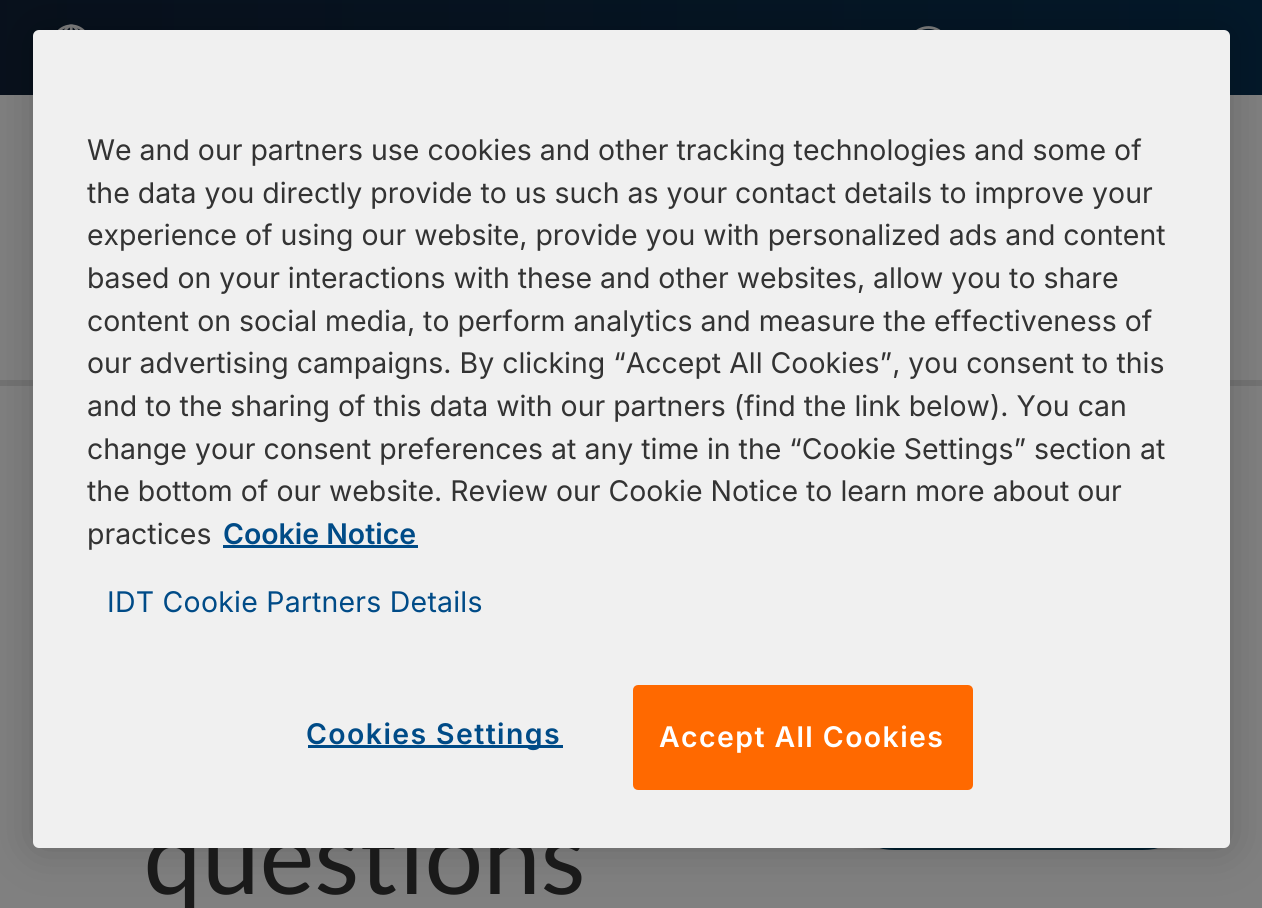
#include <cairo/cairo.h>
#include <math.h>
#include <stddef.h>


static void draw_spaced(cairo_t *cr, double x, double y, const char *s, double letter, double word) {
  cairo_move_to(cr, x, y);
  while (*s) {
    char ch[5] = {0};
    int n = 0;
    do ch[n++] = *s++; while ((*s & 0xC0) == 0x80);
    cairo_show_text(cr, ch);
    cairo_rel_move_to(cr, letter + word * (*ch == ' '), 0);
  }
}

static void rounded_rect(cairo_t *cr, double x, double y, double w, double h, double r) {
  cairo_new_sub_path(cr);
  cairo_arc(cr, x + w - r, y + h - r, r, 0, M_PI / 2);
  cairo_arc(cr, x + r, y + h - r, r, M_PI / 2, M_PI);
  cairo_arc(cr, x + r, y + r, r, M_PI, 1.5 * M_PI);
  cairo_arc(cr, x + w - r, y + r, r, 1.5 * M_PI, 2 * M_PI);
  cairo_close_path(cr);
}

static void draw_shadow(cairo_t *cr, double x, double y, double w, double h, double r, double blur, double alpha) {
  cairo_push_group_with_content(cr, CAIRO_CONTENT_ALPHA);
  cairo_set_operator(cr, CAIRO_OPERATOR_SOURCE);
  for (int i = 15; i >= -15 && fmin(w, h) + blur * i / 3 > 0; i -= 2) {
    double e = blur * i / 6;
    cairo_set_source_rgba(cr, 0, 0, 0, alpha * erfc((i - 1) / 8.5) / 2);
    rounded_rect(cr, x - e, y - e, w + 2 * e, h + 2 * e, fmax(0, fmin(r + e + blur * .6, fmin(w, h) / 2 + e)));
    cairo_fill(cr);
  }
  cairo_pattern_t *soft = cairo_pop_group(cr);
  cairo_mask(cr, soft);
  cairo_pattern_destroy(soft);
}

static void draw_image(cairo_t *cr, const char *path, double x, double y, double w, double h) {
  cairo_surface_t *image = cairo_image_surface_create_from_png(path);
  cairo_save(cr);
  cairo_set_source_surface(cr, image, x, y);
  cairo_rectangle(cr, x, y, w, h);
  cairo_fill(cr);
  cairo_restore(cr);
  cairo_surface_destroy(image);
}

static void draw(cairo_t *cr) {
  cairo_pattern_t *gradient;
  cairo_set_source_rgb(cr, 128 / 255.0, 128 / 255.0, 128 / 255.0);
  cairo_paint(cr);
  gradient = cairo_pattern_create_linear(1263, 47, -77, 48);
  cairo_pattern_add_color_stop_rgba(gradient, 0, 3 / 255.0, 24 / 255.0, 41 / 255.0, 1);
  cairo_pattern_add_color_stop_rgba(gradient, 1, 8 / 255.0, 16 / 255.0, 27 / 255.0, 1);
  cairo_set_source(cr, gradient);
  cairo_pattern_destroy(gradient);
  cairo_rectangle(cr, 0, 0, 1262, 95);
  cairo_fill(cr);
  draw_image(cr, "images/1.png", 58, 24, 27, 6);
  cairo_new_path(cr);
  cairo_move_to(cr, 928.5, 66);
  cairo_curve_to(cr, 939, 66, 947.5, 57.5, 947.5, 46.5);
  cairo_curve_to(cr, 947.5, 36, 939, 27.5, 928.5, 27.5);
  cairo_curve_to(cr, 917.5, 27.5, 909, 36, 909, 46.5);
  cairo_curve_to(cr, 909, 57.5, 917.5, 66, 928.5, 66);
  cairo_close_path(cr);
  cairo_set_source_rgb(cr, 128 / 255.0, 128 / 255.0, 128 / 255.0);
  cairo_set_line_width(cr, 2.7);
  cairo_set_line_cap(cr, CAIRO_LINE_CAP_ROUND);
  cairo_set_line_join(cr, CAIRO_LINE_JOIN_ROUND);
  cairo_stroke(cr);
  cairo_set_source_rgb(cr, 115 / 255.0, 115 / 255.0, 115 / 255.0);
  cairo_rectangle(cr, 0, 380, 1262, 6);
  cairo_fill(cr);
  draw_image(cr, "images/2.png", 854, 848, 329, 2);
  cairo_set_source_rgb(cr, 0, 0, 0);
  draw_shadow(cr, 33, 30, 1197, 818, 6, 22.5, 0.2);
  cairo_select_font_face(cr, "Lato", CAIRO_FONT_SLANT_NORMAL, CAIRO_FONT_WEIGHT_NORMAL);
  cairo_set_font_size(cr, 104);
  cairo_set_source_rgb(cr, 26 / 255.0, 26 / 255.0, 26 / 255.0);
  cairo_move_to(cr, 144, 894);
  cairo_show_text(cr, "questions");
  cairo_set_source_rgb(cr, 240 / 255.0, 240 / 255.0, 240 / 255.0);
  rounded_rect(cr, 33, 30, 1197, 818, 6);
  cairo_fill(cr);
  cairo_set_source_rgb(cr, 0, 75 / 255.0, 135 / 255.0);
  cairo_rectangle(cr, 308, 745, 255, 3);
  cairo_fill(cr);
  cairo_select_font_face(cr, "Inter SemiBold", CAIRO_FONT_SLANT_NORMAL, CAIRO_FONT_WEIGHT_NORMAL);
  cairo_set_font_size(cr, 28.45);
  draw_spaced(cr, 306, 744, "Cookies Settings", 1.4, 0);
  cairo_set_source_rgb(cr, 1, 105 / 255.0, 0);
  rounded_rect(cr, 634.5, 686.5, 337, 102, 3.5);
  cairo_fill_preserve(cr);
  cairo_set_line_width(cr, 3);
  cairo_set_line_cap(cr, CAIRO_LINE_CAP_BUTT);
  cairo_set_line_join(cr, CAIRO_LINE_JOIN_MITER);
  cairo_stroke(cr);
  cairo_set_source_rgb(cr, 1, 1, 1);
  draw_spaced(cr, 659, 747, "Accept All Cookies", 1.4, 0);
  cairo_select_font_face(cr, "Inter", CAIRO_FONT_SLANT_NORMAL, CAIRO_FONT_WEIGHT_NORMAL);
  cairo_set_source_rgb(cr, 0, 75 / 255.0, 135 / 255.0);
  draw_spaced(cr, 107, 612, "IDT Cookie Partners Details", 0.25, 0);
  cairo_select_font_face(cr, "Inter SemiBold", CAIRO_FONT_SLANT_NORMAL, CAIRO_FONT_WEIGHT_NORMAL);
  cairo_move_to(cr, 223, 544);
  cairo_show_text(cr, "Cookie Notice");
  cairo_rectangle(cr, 223, 545, 195, 3);
  cairo_fill(cr);
  cairo_select_font_face(cr, "Inter", CAIRO_FONT_SLANT_NORMAL, CAIRO_FONT_WEIGHT_NORMAL);
  cairo_set_source_rgb(cr, 51 / 255.0, 51 / 255.0, 51 / 255.0);
  cairo_move_to(cr, 87, 544);
  cairo_show_text(cr, "practices");
  cairo_move_to(cr, 87, 501);
  cairo_show_text(cr, "the bottom of our website. Review our Cookie Notice to learn more about our");
  cairo_move_to(cr, 87, 459);
  cairo_show_text(cr, "change your consent preferences at any time in the “Cookie Settings” section at");
  cairo_move_to(cr, 87, 416);
  cairo_show_text(cr, "and to the sharing of this data with our partners (find the link below). You can");
  cairo_move_to(cr, 87, 373);
  cairo_show_text(cr, "our advertising campaigns. By clicking “Accept All Cookies”, you consent to this");
  cairo_move_to(cr, 87, 331);
  cairo_show_text(cr, "content on social media, to perform analytics and measure the effectiveness of");
  cairo_move_to(cr, 87, 288);
  cairo_show_text(cr, "based on your interactions with these and other websites, allow you to share");
  cairo_move_to(cr, 87, 245);
  cairo_show_text(cr, "experience of using our website, provide you with personalized ads and content");
  cairo_move_to(cr, 87, 203);
  cairo_show_text(cr, "the data you directly provide to us such as your contact details to improve your");
  cairo_move_to(cr, 87, 160);
  cairo_show_text(cr, "We and our partners use cookies and other tracking technologies and some of");
}

int main(void) {
  cairo_surface_t *surface = cairo_image_surface_create(CAIRO_FORMAT_RGB24, 1262, 908);
  cairo_t *cr = cairo_create(surface);
  cairo_font_options_t *options = cairo_font_options_create();
  cairo_font_options_set_hint_metrics(options, CAIRO_HINT_METRICS_OFF);
  cairo_font_options_set_hint_style(options, CAIRO_HINT_STYLE_NONE);
  cairo_set_font_options(cr, options);
  cairo_set_miter_limit(cr, 4);
  draw(cr);
  cairo_surface_write_to_png(surface, "out.png");
  cairo_font_options_destroy(options);
  cairo_destroy(cr);
  cairo_surface_destroy(surface);
  return 0;
}
